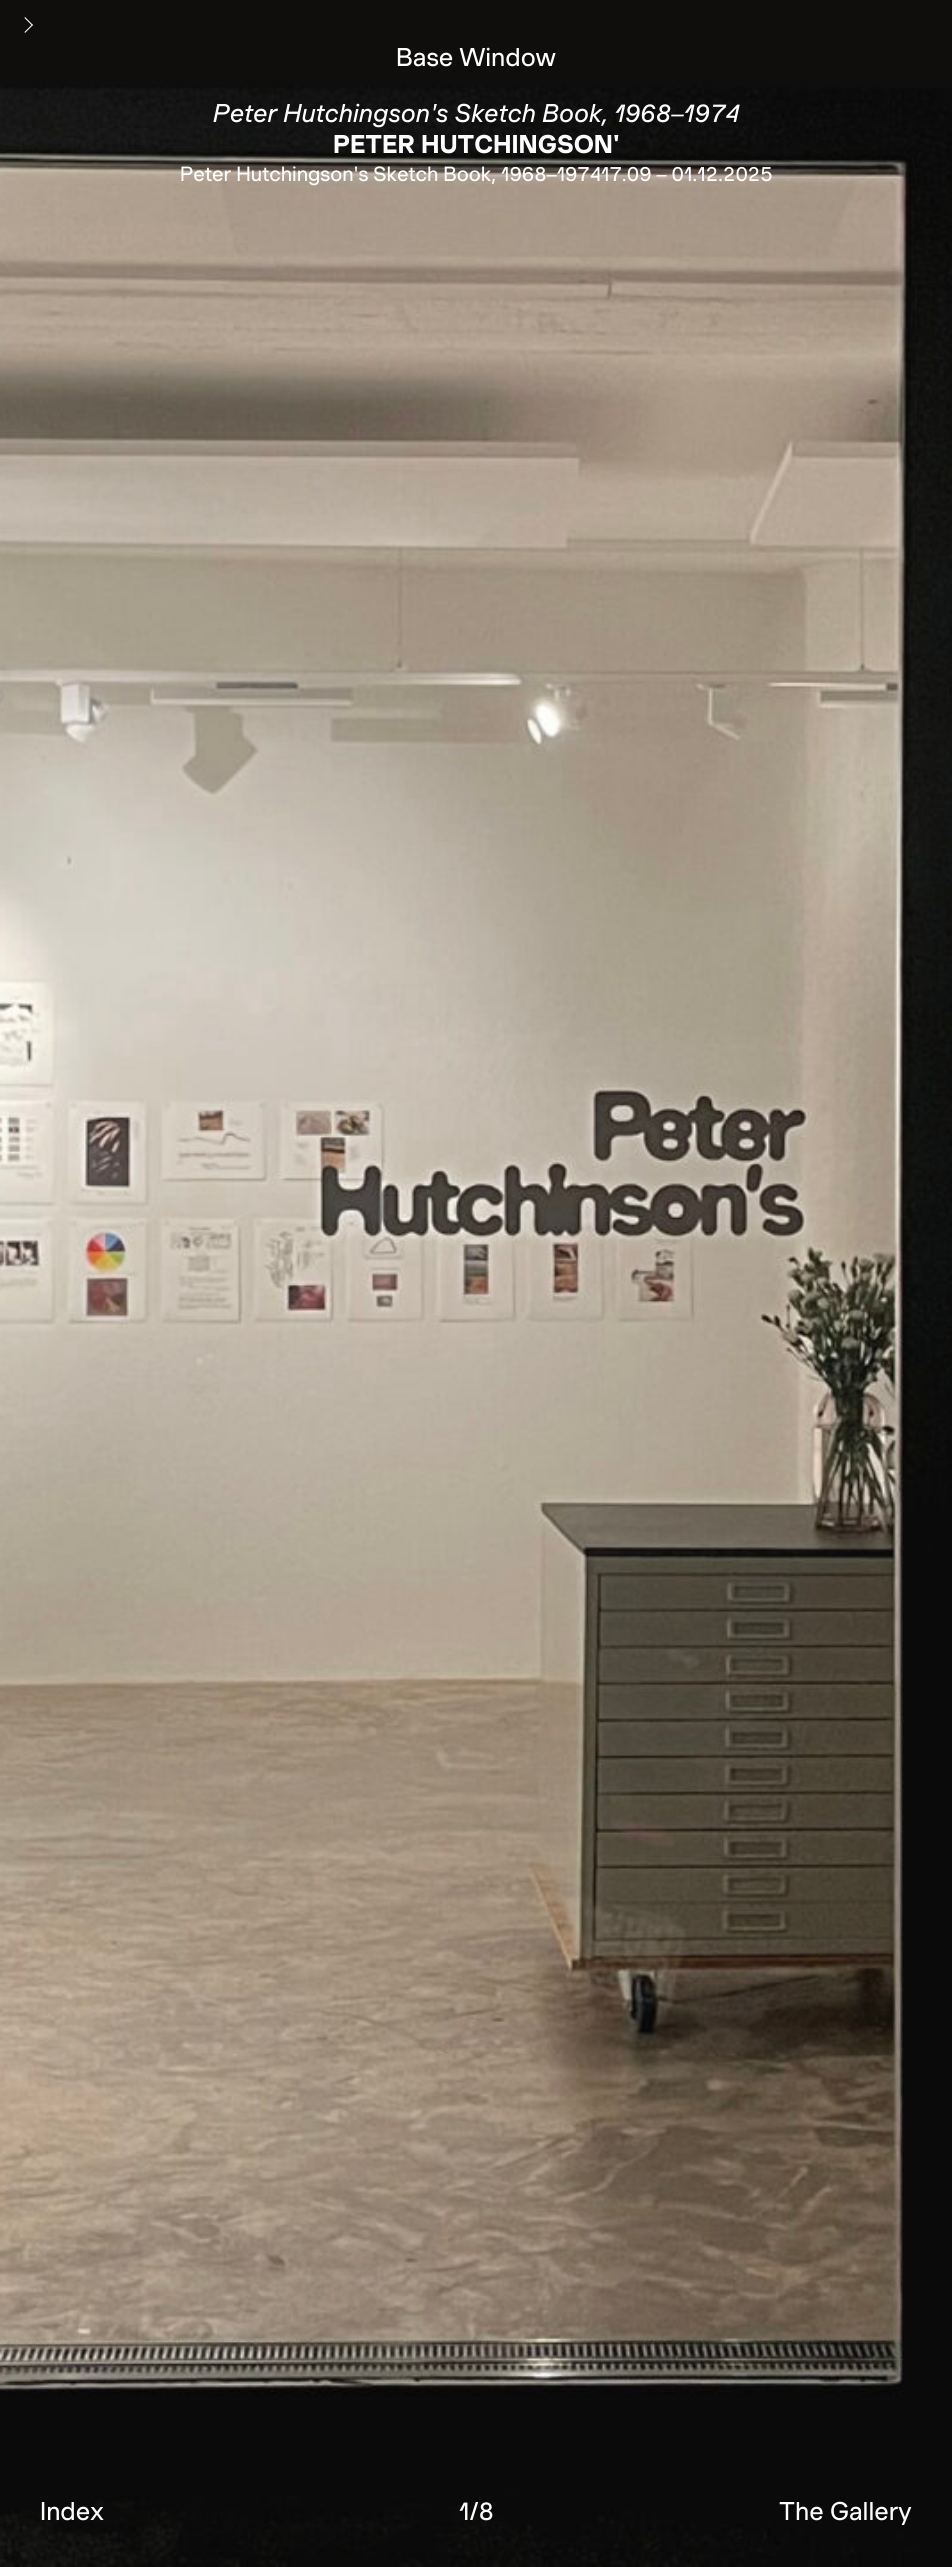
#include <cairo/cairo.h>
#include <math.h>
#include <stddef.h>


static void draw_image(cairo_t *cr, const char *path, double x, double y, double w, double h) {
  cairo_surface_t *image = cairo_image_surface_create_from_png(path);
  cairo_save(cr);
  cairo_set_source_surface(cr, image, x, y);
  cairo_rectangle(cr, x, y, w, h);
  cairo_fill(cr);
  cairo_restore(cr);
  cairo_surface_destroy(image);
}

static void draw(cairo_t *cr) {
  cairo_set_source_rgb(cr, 1, 1, 1);
  cairo_paint(cr);
  draw_image(cr, "images/1.png", 0, 0, 952, 2567);
  cairo_set_source_rgb(cr, 1, 1, 1);
  cairo_new_path(cr);
  cairo_move_to(cr, 25, 17);
  cairo_line_to(cr, 33, 25);
  cairo_line_to(cr, 32, 25.5);
  cairo_line_to(cr, 24.5, 18);
  cairo_close_path(cr);
  cairo_fill(cr);
  cairo_new_path(cr);
  cairo_move_to(cr, 32, 24.5);
  cairo_line_to(cr, 33, 25);
  cairo_line_to(cr, 25, 33);
  cairo_line_to(cr, 24.5, 32);
  cairo_close_path(cr);
  cairo_fill(cr);
  cairo_select_font_face(cr, "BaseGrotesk", CAIRO_FONT_SLANT_NORMAL, CAIRO_FONT_WEIGHT_NORMAL);
  cairo_set_font_size(cr, 25);
  cairo_move_to(cr, 396, 66);
  cairo_show_text(cr, "Base Window");
  cairo_select_font_face(cr, "BaseGrotesk", CAIRO_FONT_SLANT_ITALIC, CAIRO_FONT_WEIGHT_NORMAL);
  cairo_move_to(cr, 213, 122);
  cairo_show_text(cr, "Peter Hutchingson's Sketch Book, 1968–1974");
  cairo_select_font_face(cr, "BaseGrotesk", CAIRO_FONT_SLANT_NORMAL, CAIRO_FONT_WEIGHT_BOLD);
  cairo_move_to(cr, 333, 153);
  cairo_show_text(cr, "PETER HUTCHINGSON'");
  cairo_select_font_face(cr, "BaseGrotesk", CAIRO_FONT_SLANT_NORMAL, CAIRO_FONT_WEIGHT_NORMAL);
  cairo_set_font_size(cr, 20);
  cairo_move_to(cr, 180, 181);
  cairo_show_text(cr, "Peter Hutchingson's Sketch Book, 1968–197417.09 – 01.12.2025");
  cairo_set_font_size(cr, 25);
  cairo_move_to(cr, 459, 2520);
  cairo_show_text(cr, "1/8");
  cairo_move_to(cr, 40, 2520);
  cairo_show_text(cr, "Index");
  cairo_move_to(cr, 779, 2520);
  cairo_show_text(cr, "The Gallery");
}

int main(void) {
  cairo_surface_t *surface = cairo_image_surface_create(CAIRO_FORMAT_RGB24, 952, 2567);
  cairo_t *cr = cairo_create(surface);
  cairo_font_options_t *options = cairo_font_options_create();
  cairo_font_options_set_hint_metrics(options, CAIRO_HINT_METRICS_OFF);
  cairo_font_options_set_hint_style(options, CAIRO_HINT_STYLE_NONE);
  cairo_set_font_options(cr, options);
  cairo_set_miter_limit(cr, 4);
  draw(cr);
  cairo_surface_write_to_png(surface, "out.png");
  cairo_font_options_destroy(options);
  cairo_destroy(cr);
  cairo_surface_destroy(surface);
  return 0;
}
